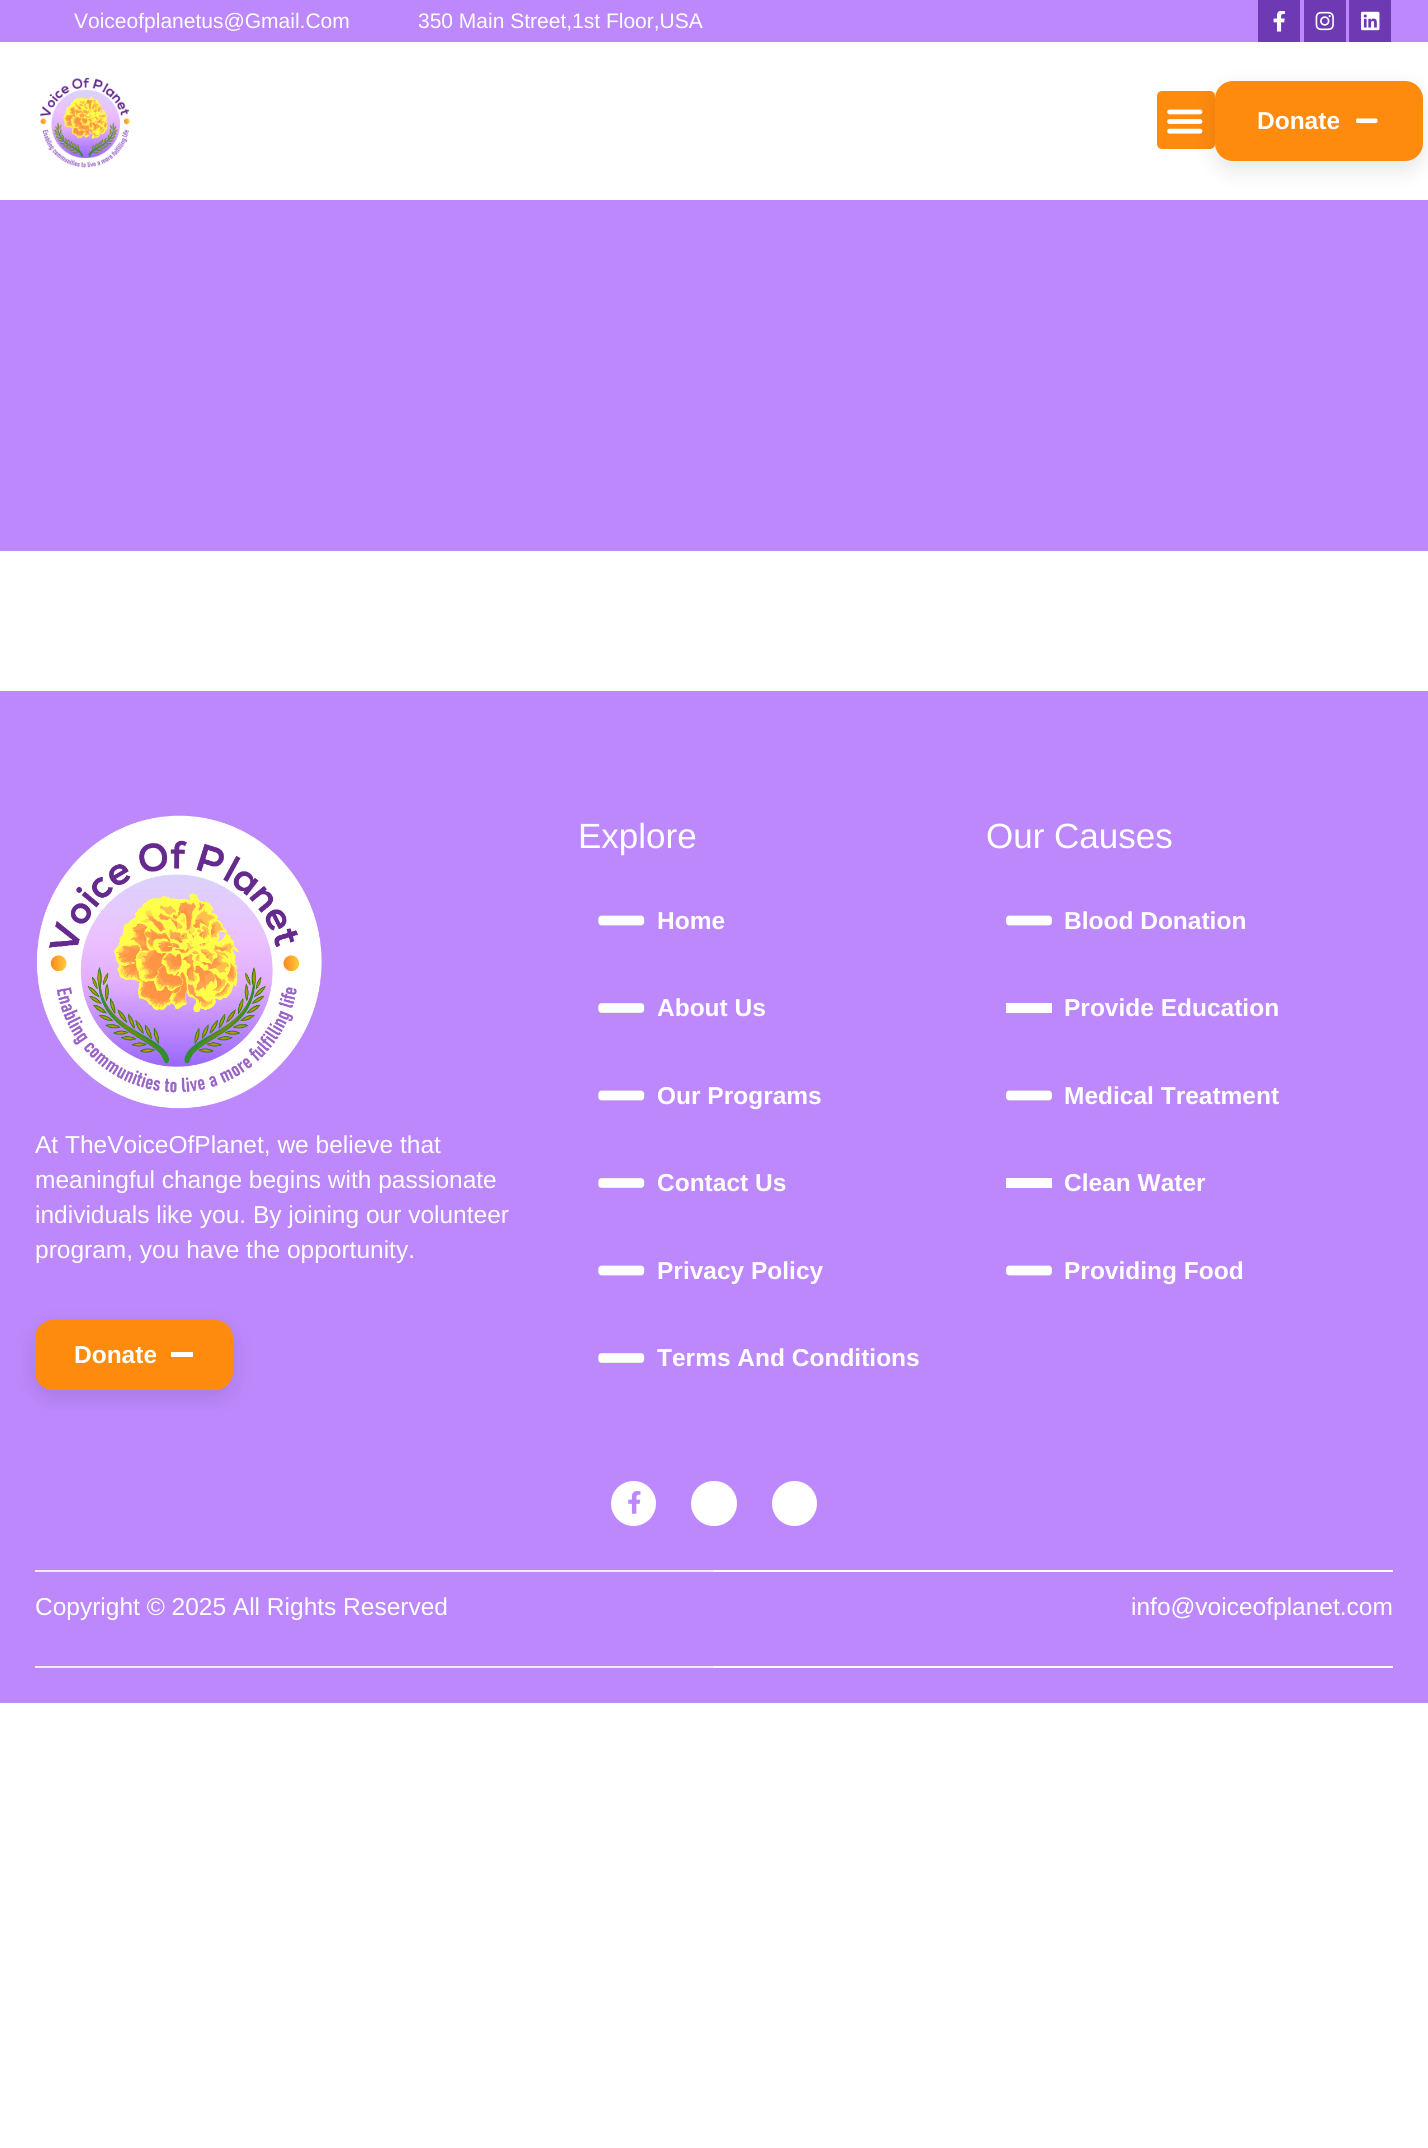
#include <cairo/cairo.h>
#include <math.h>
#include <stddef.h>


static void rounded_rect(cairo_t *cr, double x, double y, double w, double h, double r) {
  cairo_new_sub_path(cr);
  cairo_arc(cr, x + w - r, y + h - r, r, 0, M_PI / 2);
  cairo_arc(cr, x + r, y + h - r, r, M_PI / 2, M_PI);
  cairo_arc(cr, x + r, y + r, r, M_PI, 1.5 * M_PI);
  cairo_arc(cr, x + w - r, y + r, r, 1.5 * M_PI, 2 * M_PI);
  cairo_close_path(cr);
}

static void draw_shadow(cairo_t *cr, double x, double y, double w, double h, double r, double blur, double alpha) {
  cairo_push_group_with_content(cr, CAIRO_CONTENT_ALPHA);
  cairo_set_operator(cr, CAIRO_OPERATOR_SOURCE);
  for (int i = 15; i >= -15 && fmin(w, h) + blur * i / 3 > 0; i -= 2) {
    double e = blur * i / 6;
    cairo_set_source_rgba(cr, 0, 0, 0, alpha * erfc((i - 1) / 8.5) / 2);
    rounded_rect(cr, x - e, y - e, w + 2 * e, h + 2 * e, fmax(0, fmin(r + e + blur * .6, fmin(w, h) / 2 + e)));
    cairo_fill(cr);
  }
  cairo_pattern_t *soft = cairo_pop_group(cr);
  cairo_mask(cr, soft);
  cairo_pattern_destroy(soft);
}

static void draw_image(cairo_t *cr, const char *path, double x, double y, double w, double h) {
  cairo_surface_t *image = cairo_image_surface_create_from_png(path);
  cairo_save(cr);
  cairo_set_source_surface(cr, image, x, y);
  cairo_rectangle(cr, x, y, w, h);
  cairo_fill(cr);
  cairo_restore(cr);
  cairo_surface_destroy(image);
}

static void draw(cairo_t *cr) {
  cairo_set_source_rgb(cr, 1, 1, 1);
  cairo_paint(cr);
  cairo_set_source_rgb(cr, 188 / 255.0, 136 / 255.0, 252 / 255.0);
  cairo_rectangle(cr, 0, 0, 1428, 42);
  cairo_fill(cr);
  cairo_set_source_rgb(cr, 110 / 255.0, 58 / 255.0, 179 / 255.0);
  cairo_rectangle(cr, 1258, 0, 42, 42);
  cairo_fill(cr);
  draw_image(cr, "images/1.png", 1273, 11, 12, 21);
  cairo_rectangle(cr, 1304, 0, 42, 42);
  cairo_fill(cr);
  draw_image(cr, "images/2.png", 1315, 11, 19, 20);
  cairo_rectangle(cr, 1349, 0, 42, 42);
  cairo_fill(cr);
  draw_image(cr, "images/3.png", 1361, 11, 19, 20);
  draw_image(cr, "images/4.png", 39, 77, 91, 91);
  cairo_set_source_rgb(cr, 254 / 255.0, 138 / 255.0, 14 / 255.0);
  rounded_rect(cr, 1157, 91, 58, 58, 5);
  cairo_fill(cr);
  draw_image(cr, "images/5.png", 1167, 109, 36, 25);
  cairo_set_source_rgb(cr, 0, 0, 0);
  draw_shadow(cr, 1215, 89, 208, 81, 18, 10.5, 0.1);
  cairo_set_source_rgb(cr, 254 / 255.0, 138 / 255.0, 14 / 255.0);
  rounded_rect(cr, 1215, 81, 208, 80, 18);
  cairo_fill(cr);
  draw_image(cr, "images/6.png", 1356, 118, 22, 6);
  cairo_set_source_rgb(cr, 188 / 255.0, 136 / 255.0, 252 / 255.0);
  cairo_rectangle(cr, 0, 200, 1428, 351);
  cairo_fill(cr);
  cairo_rectangle(cr, 0, 691, 1428, 1012);
  cairo_fill(cr);
  draw_image(cr, "images/7.png", 36, 815, 286, 294);
  cairo_set_source_rgb(cr, 0, 0, 0);
  draw_shadow(cr, 35, 1328, 198, 70, 18, 10.5, 0.1);
  cairo_set_source_rgb(cr, 254 / 255.0, 138 / 255.0, 14 / 255.0);
  rounded_rect(cr, 35, 1320, 198, 70, 18);
  cairo_fill(cr);
  cairo_set_source_rgb(cr, 1, 1, 1);
  cairo_rectangle(cr, 171, 1352, 22, 5);
  cairo_fill(cr);
  draw_image(cr, "images/8.png", 598, 915, 47, 11);
  draw_image(cr, "images/9.png", 598, 1003, 47, 10);
  draw_image(cr, "images/8.png", 598, 1090, 47, 11);
  draw_image(cr, "images/9.png", 598, 1178, 47, 10);
  draw_image(cr, "images/8.png", 598, 1265, 47, 11);
  draw_image(cr, "images/9.png", 598, 1353, 47, 10);
  draw_image(cr, "images/10.png", 1006, 915, 46, 11);
  cairo_rectangle(cr, 1006, 1003, 46, 10);
  cairo_fill(cr);
  draw_image(cr, "images/10.png", 1006, 1090, 46, 11);
  cairo_rectangle(cr, 1006, 1178, 46, 10);
  cairo_fill(cr);
  draw_image(cr, "images/10.png", 1006, 1265, 46, 11);
  cairo_arc(cr, 633.5, 1503.5, 22.5, 0, 2 * M_PI);
  cairo_fill(cr);
  draw_image(cr, "images/11.png", 628, 1491, 13, 23);
  rounded_rect(cr, 691, 1481, 46, 45, 22.5);
  cairo_fill(cr);
  cairo_arc(cr, 794.5, 1503.5, 22.5, 0, 2 * M_PI);
  cairo_fill(cr);
  cairo_set_source_rgb(cr, 238 / 255.0, 238 / 255.0, 238 / 255.0);
  cairo_rectangle(cr, 35, 1570, 679, 2);
  cairo_fill(cr);
  cairo_rectangle(cr, 35, 1666, 679, 2);
  cairo_fill(cr);
  cairo_set_source_rgb(cr, 1, 1, 1);
  cairo_rectangle(cr, 714, 1570, 679, 2);
  cairo_fill(cr);
  cairo_rectangle(cr, 714, 1666, 679, 2);
  cairo_fill(cr);
  cairo_select_font_face(cr, "Liberation Sans", CAIRO_FONT_SLANT_NORMAL, CAIRO_FONT_WEIGHT_NORMAL);
  cairo_set_font_size(cr, 21);
  cairo_move_to(cr, 74, 28);
  cairo_show_text(cr, "Voiceofplanetus@Gmail.Com");
  cairo_move_to(cr, 418, 28);
  cairo_show_text(cr, "350 Main Street,1st Floor,USA");
  cairo_select_font_face(cr, "Liberation Sans", CAIRO_FONT_SLANT_NORMAL, CAIRO_FONT_WEIGHT_BOLD);
  cairo_set_font_size(cr, 24.5);
  cairo_move_to(cr, 1257, 129);
  cairo_show_text(cr, "Donate");
  cairo_select_font_face(cr, "Liberation Sans", CAIRO_FONT_SLANT_NORMAL, CAIRO_FONT_WEIGHT_NORMAL);
  cairo_move_to(cr, 35, 1153);
  cairo_show_text(cr, "At TheVoiceOfPlanet, we believe that");
  cairo_move_to(cr, 35, 1188);
  cairo_show_text(cr, "meaningful change begins with passionate");
  cairo_move_to(cr, 35, 1223);
  cairo_show_text(cr, "individuals like you. By joining our volunteer");
  cairo_move_to(cr, 35, 1258);
  cairo_show_text(cr, "program, you have the opportunity.");
  cairo_select_font_face(cr, "Liberation Sans", CAIRO_FONT_SLANT_NORMAL, CAIRO_FONT_WEIGHT_BOLD);
  cairo_move_to(cr, 74, 1363);
  cairo_show_text(cr, "Donate");
  cairo_select_font_face(cr, "Liberation Sans", CAIRO_FONT_SLANT_NORMAL, CAIRO_FONT_WEIGHT_NORMAL);
  cairo_set_font_size(cr, 35);
  cairo_move_to(cr, 578, 848);
  cairo_show_text(cr, "Explore");
  cairo_select_font_face(cr, "Liberation Sans", CAIRO_FONT_SLANT_NORMAL, CAIRO_FONT_WEIGHT_BOLD);
  cairo_set_font_size(cr, 24.5);
  cairo_move_to(cr, 657, 929);
  cairo_show_text(cr, "Home");
  cairo_move_to(cr, 657, 1016);
  cairo_show_text(cr, "About Us");
  cairo_move_to(cr, 657, 1104);
  cairo_show_text(cr, "Our Programs");
  cairo_move_to(cr, 657, 1191);
  cairo_show_text(cr, "Contact Us");
  cairo_move_to(cr, 657, 1279);
  cairo_show_text(cr, "Privacy Policy");
  cairo_move_to(cr, 657, 1366);
  cairo_show_text(cr, "Terms And Conditions");
  cairo_select_font_face(cr, "Liberation Sans", CAIRO_FONT_SLANT_NORMAL, CAIRO_FONT_WEIGHT_NORMAL);
  cairo_set_font_size(cr, 35);
  cairo_move_to(cr, 986, 848);
  cairo_show_text(cr, "Our Causes");
  cairo_select_font_face(cr, "Liberation Sans", CAIRO_FONT_SLANT_NORMAL, CAIRO_FONT_WEIGHT_BOLD);
  cairo_set_font_size(cr, 24.5);
  cairo_move_to(cr, 1064, 929);
  cairo_show_text(cr, "Blood Donation");
  cairo_move_to(cr, 1064, 1016);
  cairo_show_text(cr, "Provide Education");
  cairo_move_to(cr, 1064, 1104);
  cairo_show_text(cr, "Medical Treatment");
  cairo_move_to(cr, 1064, 1191);
  cairo_show_text(cr, "Clean Water");
  cairo_move_to(cr, 1064, 1279);
  cairo_show_text(cr, "Providing Food");
  cairo_select_font_face(cr, "Liberation Sans", CAIRO_FONT_SLANT_NORMAL, CAIRO_FONT_WEIGHT_NORMAL);
  cairo_move_to(cr, 35, 1615);
  cairo_show_text(cr, "Copyright © 2025 All Rights Reserved");
  cairo_move_to(cr, 1131, 1615);
  cairo_show_text(cr, "info@voiceofplanet.com");
}

int main(void) {
  cairo_surface_t *surface = cairo_image_surface_create(CAIRO_FORMAT_RGB24, 1428, 2148);
  cairo_t *cr = cairo_create(surface);
  cairo_font_options_t *options = cairo_font_options_create();
  cairo_font_options_set_hint_metrics(options, CAIRO_HINT_METRICS_OFF);
  cairo_font_options_set_hint_style(options, CAIRO_HINT_STYLE_NONE);
  cairo_set_font_options(cr, options);
  cairo_set_miter_limit(cr, 4);
  draw(cr);
  cairo_surface_write_to_png(surface, "out.png");
  cairo_font_options_destroy(options);
  cairo_destroy(cr);
  cairo_surface_destroy(surface);
  return 0;
}
